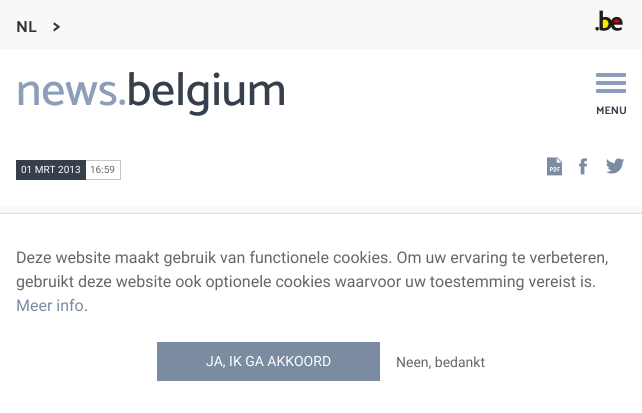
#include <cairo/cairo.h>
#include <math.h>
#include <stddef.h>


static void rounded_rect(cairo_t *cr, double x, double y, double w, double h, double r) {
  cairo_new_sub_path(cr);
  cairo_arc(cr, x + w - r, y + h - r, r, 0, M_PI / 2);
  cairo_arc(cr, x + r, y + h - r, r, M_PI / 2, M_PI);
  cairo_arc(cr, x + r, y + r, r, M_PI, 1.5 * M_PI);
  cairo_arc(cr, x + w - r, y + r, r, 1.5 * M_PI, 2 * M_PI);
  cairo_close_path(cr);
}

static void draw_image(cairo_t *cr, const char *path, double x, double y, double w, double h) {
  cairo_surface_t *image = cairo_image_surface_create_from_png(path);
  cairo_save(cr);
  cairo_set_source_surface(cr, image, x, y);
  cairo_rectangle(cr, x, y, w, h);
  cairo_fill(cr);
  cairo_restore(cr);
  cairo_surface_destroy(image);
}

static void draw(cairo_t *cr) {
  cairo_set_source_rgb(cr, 248 / 255.0, 248 / 255.0, 247 / 255.0);
  cairo_paint(cr);
  draw_image(cr, "images/1.png", 595, 10, 28, 21);
  cairo_set_source_rgb(cr, 1, 1, 1);
  cairo_rectangle(cr, 0, 49, 642, 163);
  cairo_fill(cr);
  cairo_set_source_rgb(cr, 140 / 255.0, 158 / 255.0, 184 / 255.0);
  rounded_rect(cr, 596, 73, 30, 4, 1);
  cairo_fill(cr);
  rounded_rect(cr, 596, 81, 30, 4, 1);
  cairo_fill(cr);
  rounded_rect(cr, 596, 89, 30, 4, 1);
  cairo_fill(cr);
  cairo_set_source_rgb(cr, 54 / 255.0, 63 / 255.0, 76 / 255.0);
  cairo_rectangle(cr, 16, 160, 70, 20);
  cairo_fill(cr);
  cairo_set_source_rgb(cr, 194 / 255.0, 197 / 255.0, 201 / 255.0);
  cairo_rectangle(cr, 86, 160, 35, 1);
  cairo_fill(cr);
  cairo_rectangle(cr, 120, 160, 1, 20);
  cairo_fill(cr);
  cairo_rectangle(cr, 86, 179, 35, 1);
  cairo_fill(cr);
  draw_image(cr, "images/2.png", 547, 157, 16, 19);
  draw_image(cr, "images/3.png", 579, 158, 8, 17);
  draw_image(cr, "images/4.png", 606, 158, 19, 16);
  cairo_set_source_rgba(cr, 51 / 255.0, 51 / 255.0, 51 / 255.0, 0.03);
  cairo_new_path(cr);
  cairo_move_to(cr, -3, 207);
  cairo_line_to(cr, -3, 413);
  cairo_line_to(cr, 0, 413);
  cairo_line_to(cr, 0, 213);
  cairo_line_to(cr, 642, 213);
  cairo_line_to(cr, 642, 413);
  cairo_line_to(cr, 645, 413);
  cairo_line_to(cr, 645, 207);
  cairo_close_path(cr);
  cairo_fill(cr);
  cairo_set_source_rgb(cr, 1, 1, 1);
  cairo_rectangle(cr, 0, 214, 642, 199);
  cairo_fill(cr);
  cairo_set_source_rgb(cr, 225 / 255.0, 225 / 255.0, 225 / 255.0);
  cairo_rectangle(cr, 0, 213, 642, 1);
  cairo_fill(cr);
  cairo_set_source_rgb(cr, 123 / 255.0, 139 / 255.0, 162 / 255.0);
  cairo_rectangle(cr, 157, 342, 223, 39);
  cairo_fill(cr);
  cairo_select_font_face(cr, "Catamaran", CAIRO_FONT_SLANT_NORMAL, CAIRO_FONT_WEIGHT_BOLD);
  cairo_set_font_size(cr, 16);
  cairo_set_source_rgb(cr, 51 / 255.0, 51 / 255.0, 51 / 255.0);
  cairo_move_to(cr, 16, 32);
  cairo_show_text(cr, "NL");
  cairo_set_font_size(cr, 21);
  cairo_move_to(cr, 53, 32);
  cairo_show_text(cr, ">");
  cairo_select_font_face(cr, "Catamaran Medium", CAIRO_FONT_SLANT_NORMAL, CAIRO_FONT_WEIGHT_NORMAL);
  cairo_set_font_size(cr, 47);
  cairo_set_source_rgb(cr, 140 / 255.0, 158 / 255.0, 184 / 255.0);
  cairo_move_to(cr, 16, 105);
  cairo_show_text(cr, "news.");
  cairo_set_source_rgb(cr, 54 / 255.0, 63 / 255.0, 76 / 255.0);
  cairo_move_to(cr, 126, 105);
  cairo_show_text(cr, "belgium");
  cairo_select_font_face(cr, "Catamaran", CAIRO_FONT_SLANT_NORMAL, CAIRO_FONT_WEIGHT_BOLD);
  cairo_set_font_size(cr, 11);
  cairo_move_to(cr, 596, 114);
  cairo_show_text(cr, "MENU");
  cairo_select_font_face(cr, "Roboto", CAIRO_FONT_SLANT_NORMAL, CAIRO_FONT_WEIGHT_NORMAL);
  cairo_set_font_size(cr, 10);
  cairo_set_source_rgb(cr, 1, 1, 1);
  cairo_move_to(cr, 21, 173);
  cairo_show_text(cr, "01 MRT 2013");
  cairo_set_source_rgb(cr, 102 / 255.0, 102 / 255.0, 102 / 255.0);
  cairo_move_to(cr, 90, 173);
  cairo_show_text(cr, "16:59");
  cairo_set_font_size(cr, 16);
  cairo_move_to(cr, 16, 263);
  cairo_show_text(cr, "Deze website maakt gebruik van functionele cookies. Om uw ervaring te verbeteren,");
  cairo_move_to(cr, 16, 287);
  cairo_show_text(cr, "gebruikt deze website ook optionele cookies waarvoor uw toestemming vereist is.");
  cairo_set_source_rgb(cr, 123 / 255.0, 139 / 255.0, 162 / 255.0);
  cairo_move_to(cr, 16, 311);
  cairo_show_text(cr, "Meer info");
  cairo_set_source_rgb(cr, 102 / 255.0, 102 / 255.0, 102 / 255.0);
  cairo_move_to(cr, 84, 311);
  cairo_show_text(cr, ".");
  cairo_set_font_size(cr, 14);
  cairo_set_source_rgb(cr, 1, 1, 1);
  cairo_move_to(cr, 206, 366);
  cairo_show_text(cr, "JA, IK GA AKKOORD");
  cairo_set_source_rgb(cr, 102 / 255.0, 102 / 255.0, 102 / 255.0);
  cairo_move_to(cr, 396, 367);
  cairo_show_text(cr, "Neen, bedankt");
}

int main(void) {
  cairo_surface_t *surface = cairo_image_surface_create(CAIRO_FORMAT_RGB24, 642, 413);
  cairo_t *cr = cairo_create(surface);
  cairo_font_options_t *options = cairo_font_options_create();
  cairo_font_options_set_hint_metrics(options, CAIRO_HINT_METRICS_OFF);
  cairo_font_options_set_hint_style(options, CAIRO_HINT_STYLE_NONE);
  cairo_set_font_options(cr, options);
  cairo_set_miter_limit(cr, 4);
  draw(cr);
  cairo_surface_write_to_png(surface, "out.png");
  cairo_font_options_destroy(options);
  cairo_destroy(cr);
  cairo_surface_destroy(surface);
  return 0;
}
